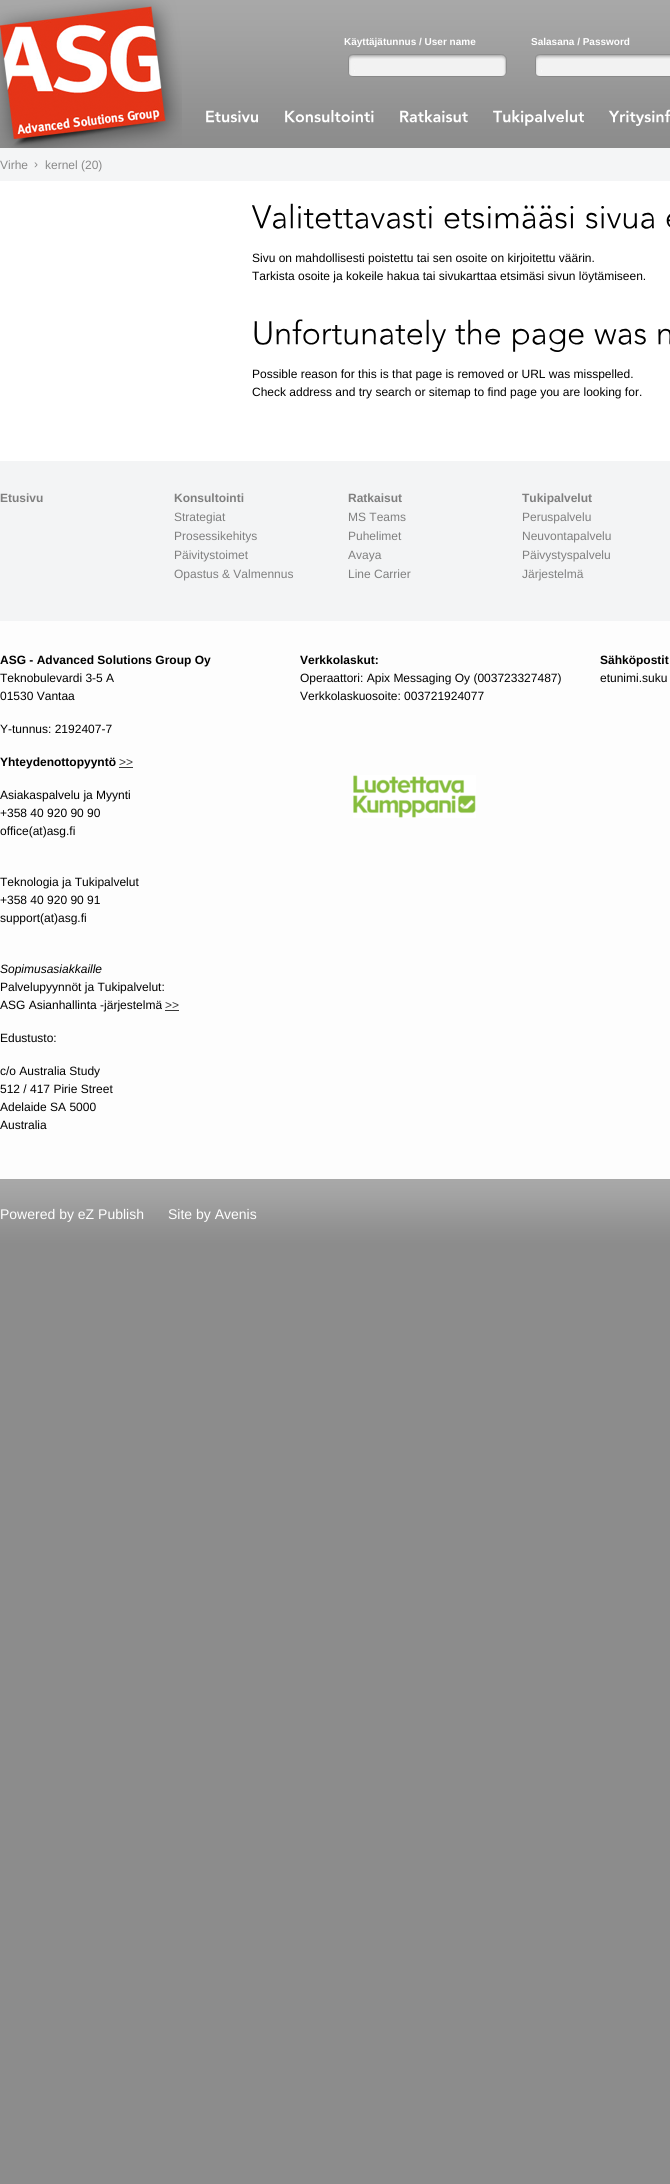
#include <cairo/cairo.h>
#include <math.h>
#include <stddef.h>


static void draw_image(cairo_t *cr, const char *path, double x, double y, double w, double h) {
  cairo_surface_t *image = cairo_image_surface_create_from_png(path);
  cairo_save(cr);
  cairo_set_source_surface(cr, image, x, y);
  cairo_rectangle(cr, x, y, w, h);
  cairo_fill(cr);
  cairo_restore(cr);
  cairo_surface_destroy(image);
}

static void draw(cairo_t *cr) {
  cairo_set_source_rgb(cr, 140 / 255.0, 140 / 255.0, 140 / 255.0);
  cairo_paint(cr);
  cairo_set_source_rgb(cr, 1, 1, 1);
  cairo_rectangle(cr, 0, 181, 670, 280);
  cairo_fill(cr);
  draw_image(cr, "images/1.png", 0, 0, 670, 181);
  draw_image(cr, "images/2.png", 0, 0, 182, 148);
  draw_image(cr, "images/3.png", 348, 54, 159, 23);
  draw_image(cr, "images/4.png", 535, 54, 135, 23);
  draw_image(cr, "images/5.png", 206, 110, 52, 13);
  draw_image(cr, "images/6.png", 285, 109, 89, 14);
  draw_image(cr, "images/7.png", 400, 110, 68, 13);
  draw_image(cr, "images/8.png", 493, 109, 91, 17);
  draw_image(cr, "images/9.png", 608, 109, 62, 17);
  draw_image(cr, "images/10.png", 252, 203, 180, 26);
  draw_image(cr, "images/11.png", 444, 205, 130, 24);
  draw_image(cr, "images/12.png", 586, 206, 68, 23);
  draw_image(cr, "images/13.png", 666, 214, 4, 13);
  draw_image(cr, "images/14.png", 254, 319, 192, 33);
  draw_image(cr, "images/15.png", 455, 319, 45, 26);
  draw_image(cr, "images/16.png", 513, 328, 71, 24);
  draw_image(cr, "images/17.png", 594, 328, 52, 17);
  draw_image(cr, "images/18.png", 658, 328, 12, 17);
  cairo_set_source_rgb(cr, 253 / 255.0, 253 / 255.0, 253 / 255.0);
  cairo_rectangle(cr, 0, 621, 670, 558);
  cairo_fill(cr);
  draw_image(cr, "images/19.png", 0, 1179, 670, 66);
  cairo_set_source_rgb(cr, 243 / 255.0, 244 / 255.0, 245 / 255.0);
  cairo_rectangle(cr, 0, 461, 670, 160);
  cairo_fill(cr);
  cairo_set_source_rgb(cr, 56 / 255.0, 56 / 255.0, 56 / 255.0);
  cairo_rectangle(cr, 119, 767, 14, 1);
  cairo_fill(cr);
  cairo_rectangle(cr, 165, 1010, 14, 1);
  cairo_fill(cr);
  draw_image(cr, "images/20.png", 353, 775, 123, 43);
  cairo_select_font_face(cr, "Liberation Sans", CAIRO_FONT_SLANT_NORMAL, CAIRO_FONT_WEIGHT_BOLD);
  cairo_set_font_size(cr, 10);
  cairo_set_source_rgb(cr, 1, 1, 1);
  cairo_move_to(cr, 344, 45);
  cairo_show_text(cr, "Käyttäjätunnus / User name");
  cairo_move_to(cr, 531, 45);
  cairo_show_text(cr, "Salasana / Password");
  cairo_select_font_face(cr, "Liberation Sans", CAIRO_FONT_SLANT_NORMAL, CAIRO_FONT_WEIGHT_NORMAL);
  cairo_set_font_size(cr, 12);
  cairo_set_source_rgb(cr, 137 / 255.0, 137 / 255.0, 137 / 255.0);
  cairo_move_to(cr, 0, 169);
  cairo_show_text(cr, "Virhe");
  cairo_move_to(cr, 34, 168);
  cairo_show_text(cr, "›");
  cairo_move_to(cr, 45, 169);
  cairo_show_text(cr, "kernel (20)");
  cairo_set_source_rgb(cr, 0, 0, 0);
  cairo_move_to(cr, 252, 262);
  cairo_show_text(cr, "Sivu on mahdollisesti poistettu tai sen osoite on kirjoitettu väärin.");
  cairo_move_to(cr, 252, 280);
  cairo_show_text(cr, "Tarkista osoite ja kokeile hakua tai sivukarttaa etsimäsi sivun löytämiseen.");
  cairo_move_to(cr, 252, 378);
  cairo_show_text(cr, "Possible reason for this is that page is removed or URL was misspelled.");
  cairo_move_to(cr, 252, 396);
  cairo_show_text(cr, "Check address and try search or sitemap to find page you are looking for.");
  cairo_select_font_face(cr, "Liberation Sans", CAIRO_FONT_SLANT_NORMAL, CAIRO_FONT_WEIGHT_BOLD);
  cairo_set_source_rgb(cr, 127 / 255.0, 127 / 255.0, 127 / 255.0);
  cairo_move_to(cr, 0, 502);
  cairo_show_text(cr, "Etusivu");
  cairo_move_to(cr, 174, 502);
  cairo_show_text(cr, "Konsultointi");
  cairo_select_font_face(cr, "Liberation Sans", CAIRO_FONT_SLANT_NORMAL, CAIRO_FONT_WEIGHT_NORMAL);
  cairo_move_to(cr, 174, 521);
  cairo_show_text(cr, "Strategiat");
  cairo_move_to(cr, 174, 540);
  cairo_show_text(cr, "Prosessikehitys");
  cairo_move_to(cr, 174, 559);
  cairo_show_text(cr, "Päivitystoimet");
  cairo_move_to(cr, 174, 578);
  cairo_show_text(cr, "Opastus & Valmennus");
  cairo_select_font_face(cr, "Liberation Sans", CAIRO_FONT_SLANT_NORMAL, CAIRO_FONT_WEIGHT_BOLD);
  cairo_move_to(cr, 348, 502);
  cairo_show_text(cr, "Ratkaisut");
  cairo_select_font_face(cr, "Liberation Sans", CAIRO_FONT_SLANT_NORMAL, CAIRO_FONT_WEIGHT_NORMAL);
  cairo_move_to(cr, 348, 521);
  cairo_show_text(cr, "MS Teams");
  cairo_move_to(cr, 348, 540);
  cairo_show_text(cr, "Puhelimet");
  cairo_move_to(cr, 348, 559);
  cairo_show_text(cr, "Avaya");
  cairo_move_to(cr, 348, 578);
  cairo_show_text(cr, "Line Carrier");
  cairo_select_font_face(cr, "Liberation Sans", CAIRO_FONT_SLANT_NORMAL, CAIRO_FONT_WEIGHT_BOLD);
  cairo_move_to(cr, 522, 502);
  cairo_show_text(cr, "Tukipalvelut");
  cairo_select_font_face(cr, "Liberation Sans", CAIRO_FONT_SLANT_NORMAL, CAIRO_FONT_WEIGHT_NORMAL);
  cairo_move_to(cr, 522, 521);
  cairo_show_text(cr, "Peruspalvelu");
  cairo_move_to(cr, 522, 540);
  cairo_show_text(cr, "Neuvontapalvelu");
  cairo_move_to(cr, 522, 559);
  cairo_show_text(cr, "Päivystyspalvelu");
  cairo_move_to(cr, 522, 578);
  cairo_show_text(cr, "Järjestelmä");
  cairo_select_font_face(cr, "Liberation Sans", CAIRO_FONT_SLANT_NORMAL, CAIRO_FONT_WEIGHT_BOLD);
  cairo_set_source_rgb(cr, 0, 0, 0);
  cairo_move_to(cr, 0, 664);
  cairo_show_text(cr, "ASG - Advanced Solutions Group Oy");
  cairo_select_font_face(cr, "Liberation Sans", CAIRO_FONT_SLANT_NORMAL, CAIRO_FONT_WEIGHT_NORMAL);
  cairo_move_to(cr, 0, 682);
  cairo_show_text(cr, "Teknobulevardi 3-5 A");
  cairo_move_to(cr, 0, 700);
  cairo_show_text(cr, "01530 Vantaa");
  cairo_move_to(cr, 0, 733);
  cairo_show_text(cr, "Y-tunnus: 2192407-7");
  cairo_select_font_face(cr, "Liberation Sans", CAIRO_FONT_SLANT_NORMAL, CAIRO_FONT_WEIGHT_BOLD);
  cairo_move_to(cr, 0, 766);
  cairo_show_text(cr, "Yhteydenottopyyntö");
  cairo_select_font_face(cr, "Liberation Sans", CAIRO_FONT_SLANT_NORMAL, CAIRO_FONT_WEIGHT_NORMAL);
  cairo_set_source_rgb(cr, 56 / 255.0, 56 / 255.0, 56 / 255.0);
  cairo_move_to(cr, 119, 766);
  cairo_show_text(cr, ">>");
  cairo_set_source_rgb(cr, 0, 0, 0);
  cairo_move_to(cr, 0, 799);
  cairo_show_text(cr, "Asiakaspalvelu ja Myynti");
  cairo_move_to(cr, 0, 817);
  cairo_show_text(cr, "+358 40 920 90 90");
  cairo_move_to(cr, 0, 835);
  cairo_show_text(cr, "office(at)asg.fi");
  cairo_move_to(cr, 0, 886);
  cairo_show_text(cr, "Teknologia ja Tukipalvelut");
  cairo_move_to(cr, 0, 904);
  cairo_show_text(cr, "+358 40 920 90 91");
  cairo_move_to(cr, 0, 922);
  cairo_show_text(cr, "support(at)asg.fi");
  cairo_select_font_face(cr, "Liberation Sans", CAIRO_FONT_SLANT_ITALIC, CAIRO_FONT_WEIGHT_NORMAL);
  cairo_move_to(cr, 0, 973);
  cairo_show_text(cr, "Sopimusasiakkaille");
  cairo_select_font_face(cr, "Liberation Sans", CAIRO_FONT_SLANT_NORMAL, CAIRO_FONT_WEIGHT_NORMAL);
  cairo_move_to(cr, 0, 991);
  cairo_show_text(cr, "Palvelupyynnöt ja Tukipalvelut:");
  cairo_move_to(cr, 0, 1009);
  cairo_show_text(cr, "ASG Asianhallinta -järjestelmä");
  cairo_set_source_rgb(cr, 56 / 255.0, 56 / 255.0, 56 / 255.0);
  cairo_move_to(cr, 165, 1009);
  cairo_show_text(cr, ">>");
  cairo_set_source_rgb(cr, 0, 0, 0);
  cairo_move_to(cr, 0, 1042);
  cairo_show_text(cr, "Edustusto:");
  cairo_move_to(cr, 0, 1075);
  cairo_show_text(cr, "c/o Australia Study");
  cairo_move_to(cr, 0, 1093);
  cairo_show_text(cr, "512 / 417 Pirie Street");
  cairo_move_to(cr, 0, 1111);
  cairo_show_text(cr, "Adelaide SA 5000");
  cairo_move_to(cr, 0, 1129);
  cairo_show_text(cr, "Australia");
  cairo_select_font_face(cr, "Liberation Sans", CAIRO_FONT_SLANT_NORMAL, CAIRO_FONT_WEIGHT_BOLD);
  cairo_move_to(cr, 300, 664);
  cairo_show_text(cr, "Verkkolaskut:");
  cairo_select_font_face(cr, "Liberation Sans", CAIRO_FONT_SLANT_NORMAL, CAIRO_FONT_WEIGHT_NORMAL);
  cairo_move_to(cr, 300, 682);
  cairo_show_text(cr, "Operaattori: Apix Messaging Oy (003723327487)");
  cairo_move_to(cr, 300, 700);
  cairo_show_text(cr, "Verkkolaskuosoite: 003721924077");
  cairo_select_font_face(cr, "Liberation Sans", CAIRO_FONT_SLANT_NORMAL, CAIRO_FONT_WEIGHT_BOLD);
  cairo_move_to(cr, 600, 664);
  cairo_show_text(cr, "Sähköpostit");
  cairo_select_font_face(cr, "Liberation Sans", CAIRO_FONT_SLANT_NORMAL, CAIRO_FONT_WEIGHT_NORMAL);
  cairo_move_to(cr, 600, 682);
  cairo_show_text(cr, "etunimi.suku");
  cairo_set_font_size(cr, 14);
  cairo_set_source_rgb(cr, 1, 1, 1);
  cairo_move_to(cr, 0, 1219);
  cairo_show_text(cr, "Powered by eZ Publish");
  cairo_move_to(cr, 168, 1219);
  cairo_show_text(cr, "Site by Avenis");
}

int main(void) {
  cairo_surface_t *surface = cairo_image_surface_create(CAIRO_FORMAT_RGB24, 670, 2184);
  cairo_t *cr = cairo_create(surface);
  cairo_font_options_t *options = cairo_font_options_create();
  cairo_font_options_set_hint_metrics(options, CAIRO_HINT_METRICS_OFF);
  cairo_font_options_set_hint_style(options, CAIRO_HINT_STYLE_NONE);
  cairo_set_font_options(cr, options);
  cairo_set_miter_limit(cr, 4);
  draw(cr);
  cairo_surface_write_to_png(surface, "out.png");
  cairo_font_options_destroy(options);
  cairo_destroy(cr);
  cairo_surface_destroy(surface);
  return 0;
}
